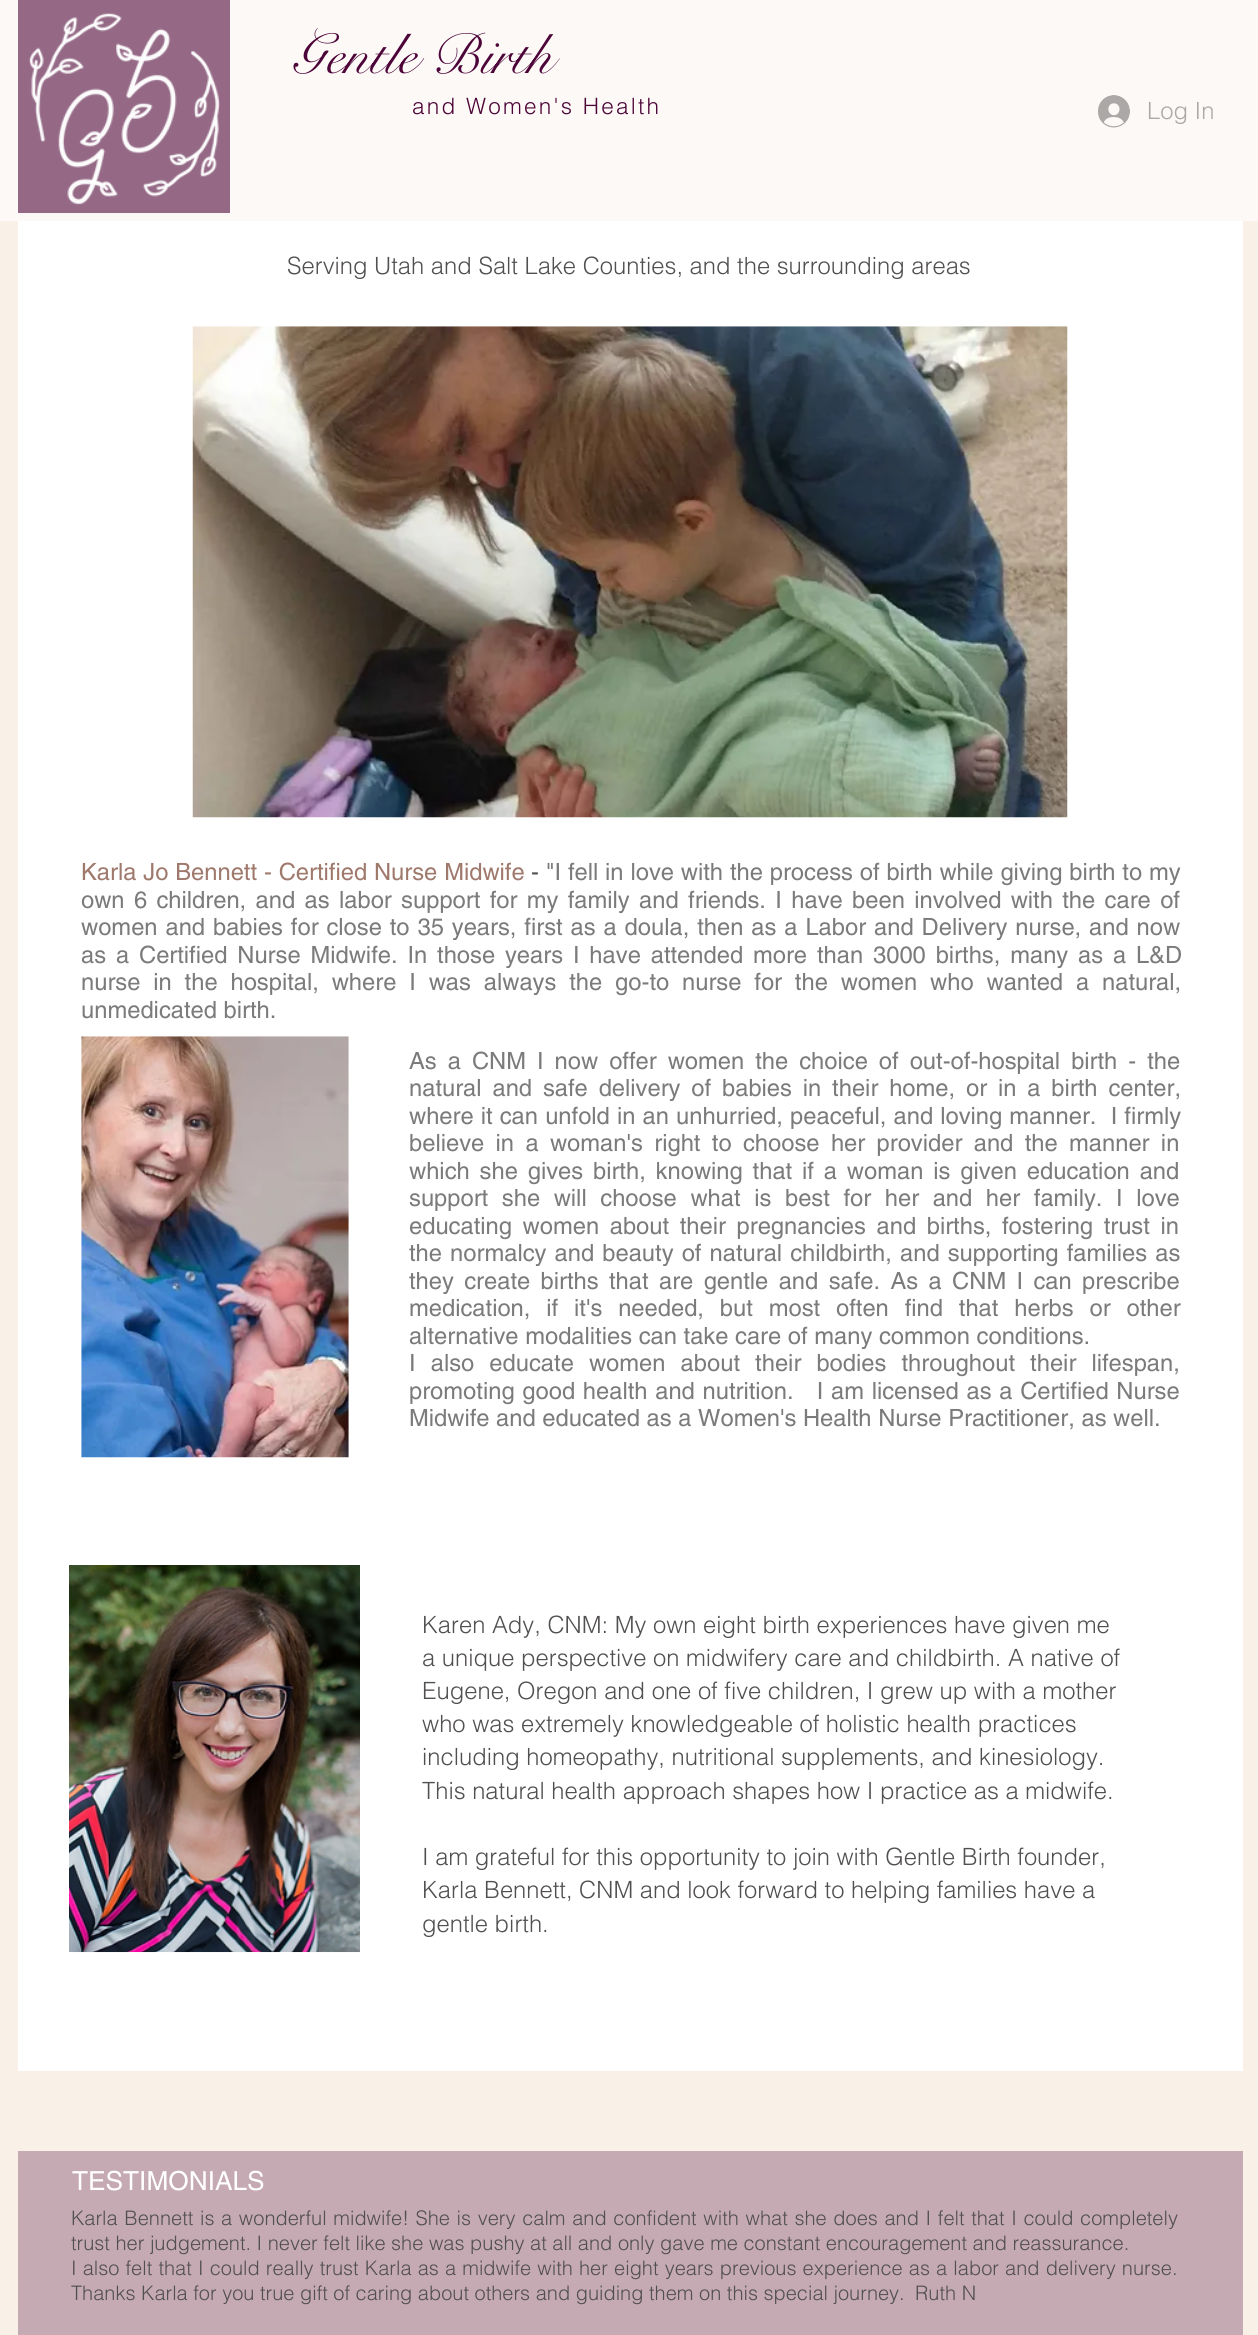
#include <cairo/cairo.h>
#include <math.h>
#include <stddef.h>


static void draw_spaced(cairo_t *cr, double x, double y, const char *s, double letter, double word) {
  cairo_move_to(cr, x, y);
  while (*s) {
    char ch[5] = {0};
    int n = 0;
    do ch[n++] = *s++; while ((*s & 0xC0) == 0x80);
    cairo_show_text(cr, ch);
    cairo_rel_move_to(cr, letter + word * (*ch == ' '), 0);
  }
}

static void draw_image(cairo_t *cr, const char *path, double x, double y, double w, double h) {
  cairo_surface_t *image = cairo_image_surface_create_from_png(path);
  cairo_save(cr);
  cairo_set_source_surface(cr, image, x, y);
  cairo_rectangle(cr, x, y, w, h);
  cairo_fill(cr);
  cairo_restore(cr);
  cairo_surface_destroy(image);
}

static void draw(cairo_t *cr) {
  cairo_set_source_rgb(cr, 249 / 255.0, 240 / 255.0, 232 / 255.0);
  cairo_paint(cr);
  cairo_set_source_rgb(cr, 252 / 255.0, 249 / 255.0, 246 / 255.0);
  cairo_rectangle(cr, 0, 0, 1258, 221);
  cairo_fill(cr);
  cairo_set_source_rgb(cr, 149 / 255.0, 105 / 255.0, 134 / 255.0);
  cairo_rectangle(cr, 18, 0, 212, 213);
  cairo_fill(cr);
  draw_image(cr, "images/1.png", 28, 13, 192, 192);
  draw_image(cr, "images/2.png", 1098, 95, 32, 33);
  cairo_set_source_rgb(cr, 1, 1, 1);
  cairo_rectangle(cr, 18, 221, 1225, 1850);
  cairo_fill(cr);
  draw_image(cr, "images/3.png", 192, 326, 876, 492);
  draw_image(cr, "images/4.png", 81, 1036, 268, 422);
  draw_image(cr, "images/5.png", 69, 1565, 291, 388);
  cairo_set_source_rgb(cr, 197 / 255.0, 170 / 255.0, 180 / 255.0);
  cairo_rectangle(cr, 18, 2151, 1225, 184);
  cairo_fill(cr);
  cairo_select_font_face(cr, "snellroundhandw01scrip", CAIRO_FONT_SLANT_NORMAL, CAIRO_FONT_WEIGHT_NORMAL);
  cairo_set_font_size(cr, 56.25);
  cairo_set_source_rgb(cr, 77 / 255.0, 5 / 255.0, 57 / 255.0);
  cairo_move_to(cr, 292, 73);
  cairo_show_text(cr, "Gentle Birth");
  cairo_select_font_face(cr, "helvetica Light", CAIRO_FONT_SLANT_NORMAL, CAIRO_FONT_WEIGHT_NORMAL);
  cairo_set_font_size(cr, 22.5);
  draw_spaced(cr, 412, 114, "and Women's Health", 2.25, 0);
  cairo_set_font_size(cr, 23.75);
  cairo_set_source_rgb(cr, 173 / 255.0, 168 / 255.0, 168 / 255.0);
  cairo_move_to(cr, 1147, 119);
  cairo_show_text(cr, "Log In");
  cairo_set_source_rgb(cr, 82 / 255.0, 79 / 255.0, 79 / 255.0);
  cairo_move_to(cr, 287, 274);
  cairo_show_text(cr, "Serving Utah and Salt Lake Counties, and the surrounding areas");
  cairo_select_font_face(cr, "helvetica", CAIRO_FONT_SLANT_NORMAL, CAIRO_FONT_WEIGHT_NORMAL);
  cairo_set_source_rgb(cr, 160 / 255.0, 121 / 255.0, 109 / 255.0);
  draw_spaced(cr, 81, 880, "Karla Jo Bennett - Certified Nurse Midwife", 0, 0.25);
  cairo_set_source_rgb(cr, 82 / 255.0, 79 / 255.0, 79 / 255.0);
  cairo_move_to(cr, 531, 880);
  cairo_show_text(cr, "-");
  cairo_set_source_rgb(cr, 124 / 255.0, 123 / 255.0, 123 / 255.0);
  draw_spaced(cr, 546, 880, "\"I fell in love with the process of birth while giving birth to my", 0, 0.25);
  draw_spaced(cr, 81, 908, "own 6 children, and as labor support for my family and friends. I have been involved with the care of", 0, 2.75);
  draw_spaced(cr, 81, 935, "women and babies for close to 35 years, first as a doula, then as a Labor and Delivery nurse, and now", 0, 1.3);
  draw_spaced(cr, 81, 963, "as a Certified Nurse Midwife. In those years I have attended more than 3000 births, many as a L&D", 0, 3.25);
  draw_spaced(cr, 81, 990, "nurse in the hospital, where I was always the go-to nurse for the women who wanted a natural,", 0, 6.25);
  cairo_move_to(cr, 81, 1018);
  cairo_show_text(cr, "unmedicated birth.");
  draw_spaced(cr, 409, 1069, "As a CNM I now offer women the choice of out-of-hospital birth - the", 0, 4.4);
  draw_spaced(cr, 409, 1096, "natural and safe delivery of babies in their home, or in a birth center,", 0, 4.25);
  draw_spaced(cr, 409, 1124, "where it can unfold in an unhurried, peaceful, and loving manner.  I firmly", 0, 0.5);
  draw_spaced(cr, 409, 1151, "believe in a woman's right to choose her provider and the manner in", 0, 4.75);
  draw_spaced(cr, 409, 1179, "which she gives birth, knowing that if a woman is given education and", 0, 3.25);
  draw_spaced(cr, 409, 1206, "support she will choose what is best for her and her family. I love", 0, 7);
  draw_spaced(cr, 409, 1234, "educating women about their pregnancies and births, fostering trust in", 0, 4);
  draw_spaced(cr, 409, 1261, "the normalcy and beauty of natural childbirth, and supporting families as", 0, 1.5);
  draw_spaced(cr, 409, 1289, "they create births that are gentle and safe. As a CNM I can prescribe", 0, 3.75);
  draw_spaced(cr, 409, 1316, "medication, if it's needed, but most often find that herbs or other", 0, 9.25);
  cairo_move_to(cr, 409, 1344);
  cairo_show_text(cr, "alternative modalities can take care of many common conditions.");
  draw_spaced(cr, 409, 1371, "I also educate women about their bodies throughout their lifespan,", 0, 8.5);
  draw_spaced(cr, 409, 1399, "promoting good health and nutrition.   I am licensed as a Certified Nurse", 0, 1.1);
  cairo_move_to(cr, 409, 1426);
  cairo_show_text(cr, "Midwife and educated as a Women's Health Nurse Practitioner, as well.");
  cairo_select_font_face(cr, "helvetica Light", CAIRO_FONT_SLANT_NORMAL, CAIRO_FONT_WEIGHT_NORMAL);
  cairo_set_source_rgb(cr, 82 / 255.0, 79 / 255.0, 79 / 255.0);
  cairo_move_to(cr, 422, 1633);
  cairo_show_text(cr, "Karen Ady, CNM: My own eight birth experiences have given me");
  cairo_move_to(cr, 422, 1666);
  cairo_show_text(cr, "a unique perspective on midwifery care and childbirth. A native of");
  cairo_move_to(cr, 422, 1699);
  cairo_show_text(cr, "Eugene, Oregon and one of five children, I grew up with a mother");
  cairo_move_to(cr, 422, 1732);
  cairo_show_text(cr, "who was extremely knowledgeable of holistic health practices");
  cairo_move_to(cr, 422, 1765);
  cairo_show_text(cr, "including homeopathy, nutritional supplements, and kinesiology.");
  cairo_move_to(cr, 422, 1799);
  cairo_show_text(cr, "This natural health approach shapes how I practice as a midwife.");
  cairo_move_to(cr, 422, 1865);
  cairo_show_text(cr, "I am grateful for this opportunity to join with Gentle Birth founder,");
  cairo_move_to(cr, 422, 1898);
  cairo_show_text(cr, "Karla Bennett, CNM and look forward to helping families have a");
  cairo_move_to(cr, 422, 1932);
  cairo_show_text(cr, "gentle birth.");
  cairo_select_font_face(cr, "helvetica", CAIRO_FONT_SLANT_NORMAL, CAIRO_FONT_WEIGHT_NORMAL);
  cairo_set_font_size(cr, 26.25);
  cairo_set_source_rgb(cr, 1, 1, 1);
  cairo_move_to(cr, 72, 2190);
  cairo_show_text(cr, "TESTIMONIALS");
  cairo_select_font_face(cr, "helvetica Light", CAIRO_FONT_SLANT_NORMAL, CAIRO_FONT_WEIGHT_NORMAL);
  cairo_set_font_size(cr, 20);
  cairo_set_source_rgb(cr, 82 / 255.0, 79 / 255.0, 79 / 255.0);
  draw_spaced(cr, 71, 2225, "Karla Bennett is a wonderful midwife! She is very calm and confident with what she does and I felt that I could completely", 0, 1.1);
  cairo_move_to(cr, 71, 2250);
  cairo_show_text(cr, "trust her judgement. I never felt like she was pushy at all and only gave me constant encouragement and reassurance.");
  draw_spaced(cr, 71, 2275, "I also felt that I could really trust Karla as a midwife with her eight years previous experience as a labor and delivery nurse.", 0, 0.6);
  cairo_move_to(cr, 71, 2300);
  cairo_show_text(cr, "Thanks Karla for you true gift of caring about others and guiding them on this special journey.");
  cairo_move_to(cr, 915, 2300);
  cairo_show_text(cr, "Ruth N");
}

int main(void) {
  cairo_surface_t *surface = cairo_image_surface_create(CAIRO_FORMAT_RGB24, 1258, 2335);
  cairo_t *cr = cairo_create(surface);
  cairo_font_options_t *options = cairo_font_options_create();
  cairo_font_options_set_hint_metrics(options, CAIRO_HINT_METRICS_OFF);
  cairo_font_options_set_hint_style(options, CAIRO_HINT_STYLE_NONE);
  cairo_set_font_options(cr, options);
  cairo_set_miter_limit(cr, 4);
  draw(cr);
  cairo_surface_write_to_png(surface, "out.png");
  cairo_font_options_destroy(options);
  cairo_destroy(cr);
  cairo_surface_destroy(surface);
  return 0;
}
